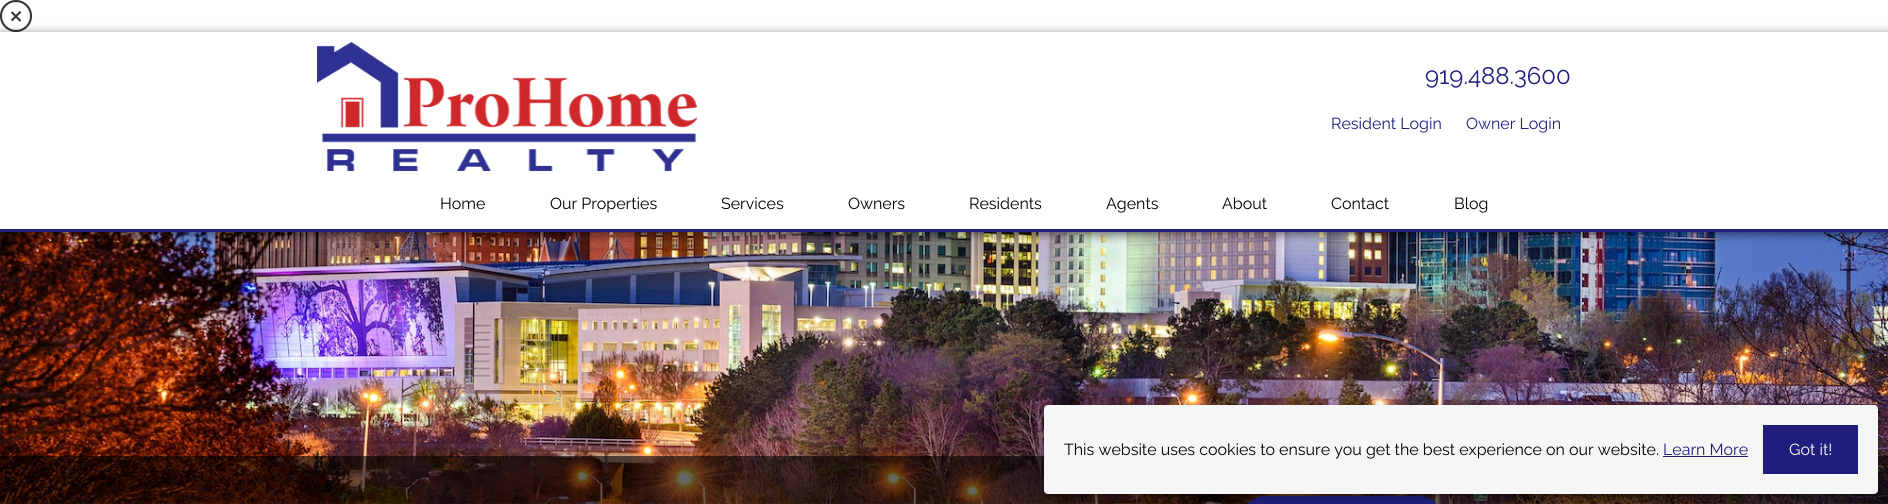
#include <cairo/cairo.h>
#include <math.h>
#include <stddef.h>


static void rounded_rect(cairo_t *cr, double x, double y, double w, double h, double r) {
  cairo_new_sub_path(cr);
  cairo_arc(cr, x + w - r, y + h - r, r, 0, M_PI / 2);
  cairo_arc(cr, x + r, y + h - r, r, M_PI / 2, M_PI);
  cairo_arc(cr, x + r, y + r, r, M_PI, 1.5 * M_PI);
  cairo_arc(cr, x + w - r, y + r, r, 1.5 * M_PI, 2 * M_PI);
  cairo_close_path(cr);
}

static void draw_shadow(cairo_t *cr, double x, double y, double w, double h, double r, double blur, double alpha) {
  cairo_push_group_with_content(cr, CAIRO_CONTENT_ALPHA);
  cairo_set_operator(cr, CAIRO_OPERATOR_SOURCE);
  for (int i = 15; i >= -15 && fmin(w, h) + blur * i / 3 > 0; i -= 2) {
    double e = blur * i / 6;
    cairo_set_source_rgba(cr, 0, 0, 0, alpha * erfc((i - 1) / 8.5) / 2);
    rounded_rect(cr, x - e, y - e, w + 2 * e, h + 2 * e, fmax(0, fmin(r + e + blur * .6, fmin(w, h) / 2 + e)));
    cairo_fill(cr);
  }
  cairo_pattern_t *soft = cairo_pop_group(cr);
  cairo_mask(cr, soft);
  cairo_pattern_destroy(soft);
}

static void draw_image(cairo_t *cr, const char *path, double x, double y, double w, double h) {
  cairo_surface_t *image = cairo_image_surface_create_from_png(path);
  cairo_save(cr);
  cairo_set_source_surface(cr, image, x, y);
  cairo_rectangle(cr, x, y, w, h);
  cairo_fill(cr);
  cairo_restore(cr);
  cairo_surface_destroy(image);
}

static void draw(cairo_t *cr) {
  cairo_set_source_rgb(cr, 1, 1, 1);
  cairo_paint(cr);
  draw_image(cr, "images/1.png", 0, 0, 32, 32);
  draw_image(cr, "images/3.png", 0, 232, 1888, 272);
  cairo_save(cr);
  cairo_set_fill_rule(cr, CAIRO_FILL_RULE_EVEN_ODD);
  cairo_new_path(cr);
  cairo_move_to(cr, 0, 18);
  cairo_line_to(cr, 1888, 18);
  cairo_line_to(cr, 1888, 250);
  cairo_line_to(cr, 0, 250);
  cairo_close_path(cr);
  cairo_move_to(cr, 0, 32);
  cairo_line_to(cr, 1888, 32);
  cairo_line_to(cr, 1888, 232);
  cairo_line_to(cr, 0, 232);
  cairo_close_path(cr);
  cairo_clip(cr);
  cairo_set_source_rgb(cr, 0, 0, 0);
  draw_shadow(cr, 0, 34, 1888, 200, 0, 5, 0.55);
  cairo_restore(cr);
  cairo_set_source_rgb(cr, 31 / 255.0, 30 / 255.0, 125 / 255.0);
  cairo_rectangle(cr, 0, 229, 1888, 3);
  cairo_fill(cr);
  draw_image(cr, "images/2.png", 317, 42, 380, 129);
  cairo_set_source_rgba(cr, 0, 0, 0, 0.6);
  cairo_rectangle(cr, 0, 456, 1888, 48);
  cairo_fill(cr);
  cairo_set_source_rgb(cr, 31 / 255.0, 30 / 255.0, 125 / 255.0);
  rounded_rect(cr, 1242.5, 496.5, 199, 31, 22.5);
  cairo_fill_preserve(cr);
  cairo_set_line_width(cr, 1);
  cairo_stroke(cr);
  cairo_set_source_rgb(cr, 0, 0, 0);
  draw_shadow(cr, 1044, 407, 834, 89, 4, 2, 0.23);
  draw_shadow(cr, 1044, 410, 834, 89, 4, 5, 0.19);
  cairo_set_source_rgb(cr, 246 / 255.0, 246 / 255.0, 246 / 255.0);
  rounded_rect(cr, 1044, 405, 834, 89, 4);
  cairo_fill(cr);
  cairo_set_source_rgb(cr, 31 / 255.0, 30 / 255.0, 125 / 255.0);
  cairo_rectangle(cr, 1663, 456, 85, 1);
  cairo_fill(cr);
  cairo_rectangle(cr, 1763, 425, 95, 49);
  cairo_fill(cr);
  cairo_select_font_face(cr, "Raleway Thin", CAIRO_FONT_SLANT_NORMAL, CAIRO_FONT_WEIGHT_NORMAL);
  cairo_set_font_size(cr, 24);
  cairo_move_to(cr, 1425, 84);
  cairo_show_text(cr, "919.488.3600");
  cairo_set_font_size(cr, 16);
  cairo_move_to(cr, 1331, 129);
  cairo_show_text(cr, "Resident Login");
  cairo_move_to(cr, 1466, 129);
  cairo_show_text(cr, "Owner Login");
  cairo_set_source_rgb(cr, 0, 0, 0);
  cairo_move_to(cr, 440, 209);
  cairo_show_text(cr, "Home");
  cairo_move_to(cr, 550, 209);
  cairo_show_text(cr, "Our Properties");
  cairo_move_to(cr, 721, 209);
  cairo_show_text(cr, "Services");
  cairo_move_to(cr, 848, 209);
  cairo_show_text(cr, "Owners");
  cairo_move_to(cr, 969, 209);
  cairo_show_text(cr, "Residents");
  cairo_move_to(cr, 1106, 209);
  cairo_show_text(cr, "Agents");
  cairo_move_to(cr, 1222, 209);
  cairo_show_text(cr, "About");
  cairo_move_to(cr, 1331, 209);
  cairo_show_text(cr, "Contact");
  cairo_move_to(cr, 1454, 209);
  cairo_show_text(cr, "Blog");
  cairo_move_to(cr, 1064, 455);
  cairo_show_text(cr, "This website uses cookies to ensure you get the best experience on our website.");
  cairo_set_source_rgb(cr, 31 / 255.0, 30 / 255.0, 125 / 255.0);
  cairo_move_to(cr, 1663, 455);
  cairo_show_text(cr, "Learn More");
  cairo_set_source_rgb(cr, 1, 1, 1);
  cairo_move_to(cr, 1789, 455);
  cairo_show_text(cr, "Got it!");
}

int main(void) {
  cairo_surface_t *surface = cairo_image_surface_create(CAIRO_FORMAT_RGB24, 1888, 504);
  cairo_t *cr = cairo_create(surface);
  cairo_font_options_t *options = cairo_font_options_create();
  cairo_font_options_set_hint_metrics(options, CAIRO_HINT_METRICS_OFF);
  cairo_font_options_set_hint_style(options, CAIRO_HINT_STYLE_NONE);
  cairo_set_font_options(cr, options);
  cairo_set_miter_limit(cr, 4);
  draw(cr);
  cairo_surface_write_to_png(surface, "out.png");
  cairo_font_options_destroy(options);
  cairo_destroy(cr);
  cairo_surface_destroy(surface);
  return 0;
}
